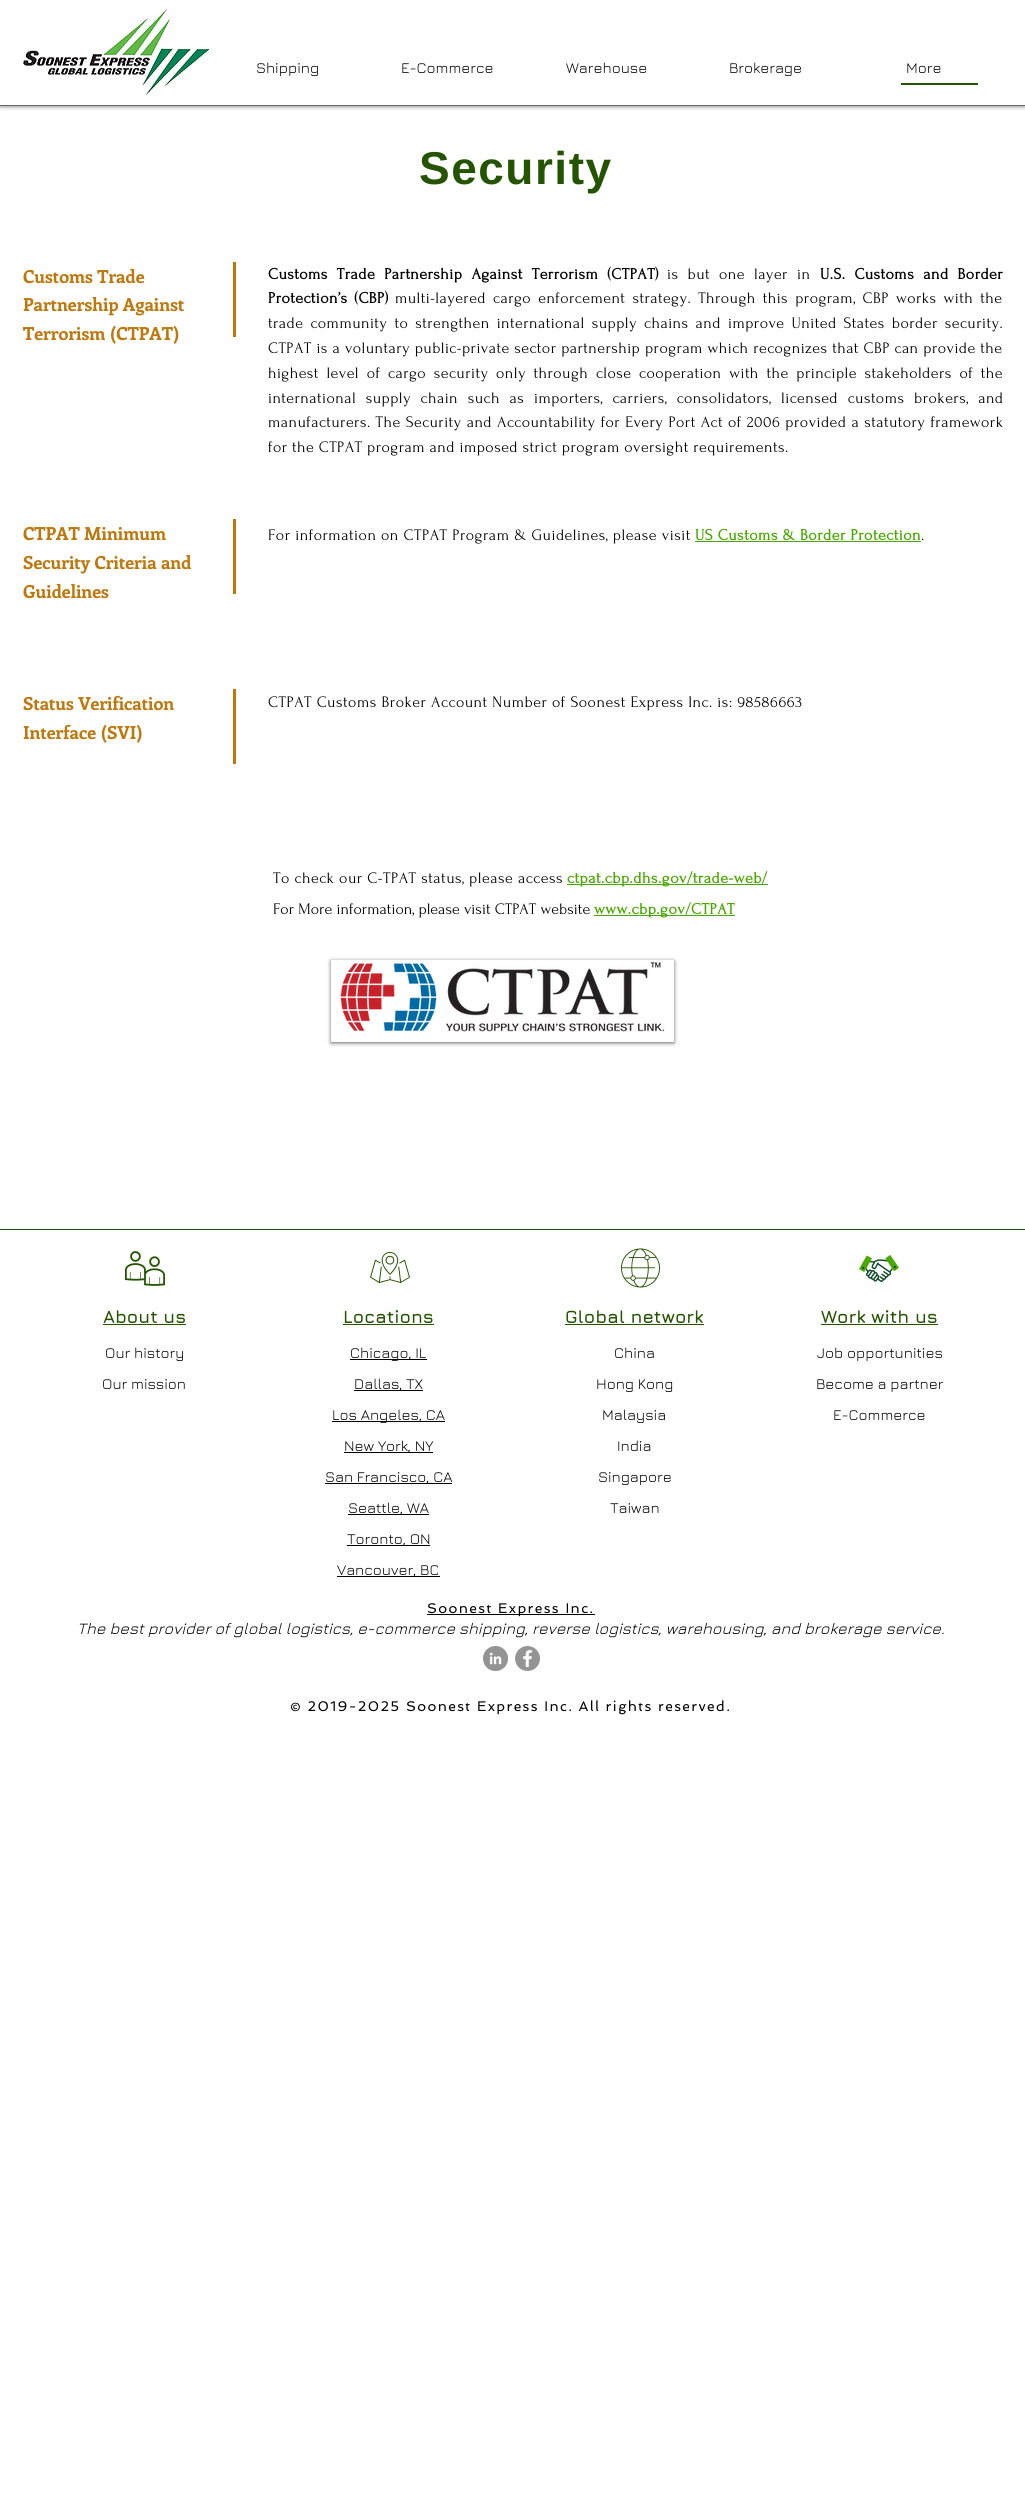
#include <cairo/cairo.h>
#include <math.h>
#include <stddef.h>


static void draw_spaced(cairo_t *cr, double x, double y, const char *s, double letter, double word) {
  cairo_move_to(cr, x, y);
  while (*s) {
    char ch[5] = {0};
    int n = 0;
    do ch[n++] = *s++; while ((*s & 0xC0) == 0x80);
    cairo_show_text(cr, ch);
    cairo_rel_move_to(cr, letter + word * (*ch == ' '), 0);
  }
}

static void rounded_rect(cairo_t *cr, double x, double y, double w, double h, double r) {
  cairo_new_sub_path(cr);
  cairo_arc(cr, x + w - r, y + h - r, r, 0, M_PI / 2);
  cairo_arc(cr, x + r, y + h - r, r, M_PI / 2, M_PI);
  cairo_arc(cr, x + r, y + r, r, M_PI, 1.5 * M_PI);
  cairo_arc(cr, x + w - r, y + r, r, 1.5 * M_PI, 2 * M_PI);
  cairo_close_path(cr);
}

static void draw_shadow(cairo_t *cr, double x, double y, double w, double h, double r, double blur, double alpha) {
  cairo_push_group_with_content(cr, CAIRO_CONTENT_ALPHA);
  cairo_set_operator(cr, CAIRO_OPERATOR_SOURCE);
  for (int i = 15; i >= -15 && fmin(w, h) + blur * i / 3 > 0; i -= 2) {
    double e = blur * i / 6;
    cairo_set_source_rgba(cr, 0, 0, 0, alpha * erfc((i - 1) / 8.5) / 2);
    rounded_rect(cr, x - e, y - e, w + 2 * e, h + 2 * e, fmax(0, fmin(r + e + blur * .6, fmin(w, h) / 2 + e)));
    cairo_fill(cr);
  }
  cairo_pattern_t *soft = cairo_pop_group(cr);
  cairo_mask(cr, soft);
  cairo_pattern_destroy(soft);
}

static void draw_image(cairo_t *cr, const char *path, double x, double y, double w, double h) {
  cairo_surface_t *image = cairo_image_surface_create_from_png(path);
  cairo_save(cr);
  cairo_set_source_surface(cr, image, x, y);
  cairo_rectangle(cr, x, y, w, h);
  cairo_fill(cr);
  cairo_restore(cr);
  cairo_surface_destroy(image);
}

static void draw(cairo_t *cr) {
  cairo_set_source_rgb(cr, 1, 1, 1);
  cairo_paint(cr);
  cairo_save(cr);
  cairo_rectangle(cr, 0, 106, 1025, 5);
  cairo_clip(cr);
  cairo_set_source_rgb(cr, 0, 0, 0);
  draw_shadow(cr, 0, 0, 1025, 106, 0, 2.5, 0.6);
  cairo_restore(cr);
  cairo_set_source_rgb(cr, 102 / 255.0, 102 / 255.0, 102 / 255.0);
  cairo_rectangle(cr, 0, 105, 1025, 1);
  cairo_fill(cr);
  draw_image(cr, "images/1.png", 23, 9, 186, 86);
  cairo_set_source_rgb(cr, 36 / 255.0, 84 / 255.0, 0);
  cairo_rectangle(cr, 901, 83, 77, 2);
  cairo_fill(cr);
  cairo_set_source_rgb(cr, 191 / 255.0, 120 / 255.0, 13 / 255.0);
  cairo_rectangle(cr, 233, 262, 3, 75);
  cairo_fill(cr);
  cairo_rectangle(cr, 233, 519, 3, 75);
  cairo_fill(cr);
  cairo_set_source_rgb(cr, 73 / 255.0, 169 / 255.0, 0);
  cairo_rectangle(cr, 695, 541, 226, 1);
  cairo_fill(cr);
  cairo_set_source_rgb(cr, 191 / 255.0, 120 / 255.0, 13 / 255.0);
  cairo_rectangle(cr, 233, 689, 3, 75);
  cairo_fill(cr);
  cairo_set_source_rgb(cr, 73 / 255.0, 169 / 255.0, 0);
  cairo_rectangle(cr, 567, 884, 201, 1);
  cairo_fill(cr);
  cairo_rectangle(cr, 594, 915, 141, 1);
  cairo_fill(cr);
  cairo_save(cr);
  cairo_set_fill_rule(cr, CAIRO_FILL_RULE_EVEN_ODD);
  cairo_new_path(cr);
  cairo_move_to(cr, 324, 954);
  cairo_line_to(cr, 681, 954);
  cairo_line_to(cr, 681, 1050);
  cairo_line_to(cr, 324, 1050);
  cairo_close_path(cr);
  cairo_move_to(cr, 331, 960);
  cairo_line_to(cr, 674, 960);
  cairo_line_to(cr, 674, 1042);
  cairo_line_to(cr, 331, 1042);
  cairo_close_path(cr);
  cairo_clip(cr);
  cairo_set_source_rgb(cr, 0, 0, 0);
  draw_shadow(cr, 331, 961, 343, 82, 0, 2, 0.6);
  cairo_restore(cr);
  draw_image(cr, "images/2.png", 340, 962, 325, 70);
  cairo_set_source_rgb(cr, 36 / 255.0, 84 / 255.0, 0);
  cairo_rectangle(cr, 0, 1229, 1025, 1);
  cairo_fill(cr);
  draw_image(cr, "images/3.png", 125, 1251, 40, 35);
  draw_image(cr, "images/4.png", 370, 1252, 40, 31);
  draw_image(cr, "images/5.png", 621, 1248, 39, 40);
  draw_image(cr, "images/6.png", 859, 1255, 40, 27);
  cairo_rectangle(cr, 103, 1324, 83, 1);
  cairo_fill(cr);
  cairo_rectangle(cr, 343, 1324, 91, 1);
  cairo_fill(cr);
  cairo_set_source_rgb(cr, 0, 0, 0);
  cairo_rectangle(cr, 350, 1359, 77, 1);
  cairo_fill(cr);
  cairo_rectangle(cr, 354, 1390, 69, 1);
  cairo_fill(cr);
  cairo_rectangle(cr, 332, 1421, 113, 1);
  cairo_fill(cr);
  cairo_rectangle(cr, 344, 1452, 89, 1);
  cairo_fill(cr);
  cairo_rectangle(cr, 325, 1483, 127, 1);
  cairo_fill(cr);
  cairo_rectangle(cr, 348, 1514, 81, 1);
  cairo_fill(cr);
  cairo_rectangle(cr, 347, 1545, 83, 1);
  cairo_fill(cr);
  cairo_rectangle(cr, 337, 1576, 103, 1);
  cairo_fill(cr);
  cairo_set_source_rgb(cr, 36 / 255.0, 84 / 255.0, 0);
  cairo_rectangle(cr, 565, 1324, 139, 1);
  cairo_fill(cr);
  cairo_rectangle(cr, 821, 1324, 117, 1);
  cairo_fill(cr);
  cairo_set_source_rgb(cr, 0, 0, 0);
  cairo_rectangle(cr, 427, 1614, 168, 1);
  cairo_fill(cr);
  draw_image(cr, "images/7.png", 483, 1646, 25, 25);
  draw_image(cr, "images/8.png", 515, 1646, 25, 25);
  cairo_select_font_face(cr, "Jura", CAIRO_FONT_SLANT_NORMAL, CAIRO_FONT_WEIGHT_NORMAL);
  cairo_set_font_size(cr, 15);
  cairo_move_to(cr, 256, 73);
  cairo_show_text(cr, "Shipping");
  cairo_move_to(cr, 401, 73);
  cairo_show_text(cr, "E-Commerce");
  cairo_move_to(cr, 566, 73);
  cairo_show_text(cr, "Warehouse");
  cairo_move_to(cr, 729, 73);
  cairo_show_text(cr, "Brokerage");
  cairo_move_to(cr, 906, 73);
  cairo_show_text(cr, "More");
  cairo_select_font_face(cr, "Liberation Sans", CAIRO_FONT_SLANT_NORMAL, CAIRO_FONT_WEIGHT_BOLD);
  cairo_set_font_size(cr, 46);
  cairo_set_source_rgb(cr, 36 / 255.0, 84 / 255.0, 0);
  draw_spaced(cr, 419, 184, "Security", 1.5, 0);
  cairo_select_font_face(cr, "Enriqueta", CAIRO_FONT_SLANT_NORMAL, CAIRO_FONT_WEIGHT_BOLD);
  cairo_set_font_size(cr, 18);
  cairo_set_source_rgb(cr, 191 / 255.0, 120 / 255.0, 13 / 255.0);
  cairo_move_to(cr, 23, 283);
  cairo_show_text(cr, "Customs Trade");
  cairo_move_to(cr, 23, 311);
  cairo_show_text(cr, "Partnership Against");
  cairo_save(cr);
  cairo_rectangle(cr, 23, 226, 980, 257);
  cairo_clip(cr);
  cairo_move_to(cr, 23, 340);
  cairo_show_text(cr, "Terrorism (CTPAT)");
  cairo_restore(cr);
  cairo_select_font_face(cr, "Forum", CAIRO_FONT_SLANT_NORMAL, CAIRO_FONT_WEIGHT_BOLD);
  cairo_set_font_size(cr, 16);
  cairo_set_source_rgb(cr, 0, 0, 0);
  draw_spaced(cr, 268, 279, "Customs Trade Partnership Against Terrorism (CTPAT)", 0.42, 4.5);
  cairo_select_font_face(cr, "Forum", CAIRO_FONT_SLANT_NORMAL, CAIRO_FONT_WEIGHT_NORMAL);
  draw_spaced(cr, 667, 279, "is but one layer in", 0.42, 4.5);
  cairo_select_font_face(cr, "Forum", CAIRO_FONT_SLANT_NORMAL, CAIRO_FONT_WEIGHT_BOLD);
  draw_spaced(cr, 820, 279, "U.S. Customs and Border", 0.42, 4.5);
  draw_spaced(cr, 268, 303, "Protection’s (CBP)", 0.42, 2.5);
  cairo_select_font_face(cr, "Forum", CAIRO_FONT_SLANT_NORMAL, CAIRO_FONT_WEIGHT_NORMAL);
  draw_spaced(cr, 395, 303, "multi-layered cargo enforcement strategy. Through this program, CBP works with the", 0.42, 2.5);
  draw_spaced(cr, 268, 328, "trade community to strengthen international supply chains and improve United States border security.", 0.42, 2.5);
  draw_spaced(cr, 268, 353, "CTPAT is a voluntary public-private sector partnership program which recognizes that CBP can provide the", 0.42, 0.1);
  draw_spaced(cr, 268, 378, "highest level of cargo security only through close cooperation with the principle stakeholders of the", 0.42, 3.1);
  draw_spaced(cr, 268, 403, "international supply chain such as importers, carriers, consolidators, licensed customs brokers, and", 0.42, 5.1);
  draw_spaced(cr, 268, 427, "manufacturers. The Security and Accountability for Every Port Act of 2006 provided a statutory framework", 0.42, 0.5);
  draw_spaced(cr, 268, 452, "for the CTPAT program and imposed strict program oversight requirements.", 0.42, 0);
  cairo_select_font_face(cr, "Enriqueta", CAIRO_FONT_SLANT_NORMAL, CAIRO_FONT_WEIGHT_BOLD);
  cairo_set_font_size(cr, 18);
  cairo_set_source_rgb(cr, 191 / 255.0, 120 / 255.0, 13 / 255.0);
  cairo_move_to(cr, 23, 540);
  cairo_show_text(cr, "CTPAT Minimum");
  cairo_move_to(cr, 23, 569);
  cairo_show_text(cr, "Security Criteria and");
  cairo_move_to(cr, 23, 598);
  cairo_show_text(cr, "Guidelines");
  cairo_select_font_face(cr, "Forum", CAIRO_FONT_SLANT_NORMAL, CAIRO_FONT_WEIGHT_NORMAL);
  cairo_set_font_size(cr, 16);
  cairo_set_source_rgb(cr, 0, 0, 0);
  draw_spaced(cr, 268, 540, "For information on CTPAT Program & Guidelines, please visit", 0.48, 0);
  cairo_select_font_face(cr, "Forum", CAIRO_FONT_SLANT_NORMAL, CAIRO_FONT_WEIGHT_BOLD);
  cairo_set_source_rgb(cr, 73 / 255.0, 169 / 255.0, 0);
  draw_spaced(cr, 695, 540, "US Customs & Border Protection", 0.48, 0);
  cairo_select_font_face(cr, "Forum", CAIRO_FONT_SLANT_NORMAL, CAIRO_FONT_WEIGHT_NORMAL);
  cairo_set_source_rgb(cr, 0, 0, 0);
  draw_spaced(cr, 921, 540, ".", 0.48, 0);
  cairo_select_font_face(cr, "Enriqueta", CAIRO_FONT_SLANT_NORMAL, CAIRO_FONT_WEIGHT_BOLD);
  cairo_set_font_size(cr, 18);
  cairo_set_source_rgb(cr, 191 / 255.0, 120 / 255.0, 13 / 255.0);
  cairo_move_to(cr, 23, 710);
  cairo_show_text(cr, "Status Verification");
  cairo_move_to(cr, 23, 739);
  cairo_show_text(cr, "Interface (SVI)");
  cairo_select_font_face(cr, "Forum", CAIRO_FONT_SLANT_NORMAL, CAIRO_FONT_WEIGHT_NORMAL);
  cairo_set_font_size(cr, 16);
  cairo_set_source_rgb(cr, 0, 0, 0);
  draw_spaced(cr, 268, 707, "CTPAT Customs Broker Account Number of Soonest Express Inc. is: 98586663", 0.48, 0);
  draw_spaced(cr, 273, 883, "To check our C-TPAT status, please access", 0.48, 0);
  cairo_select_font_face(cr, "Forum", CAIRO_FONT_SLANT_NORMAL, CAIRO_FONT_WEIGHT_BOLD);
  cairo_set_source_rgb(cr, 73 / 255.0, 169 / 255.0, 0);
  draw_spaced(cr, 567, 883, "ctpat.cbp.dhs.gov/trade-web/", 0.48, 0);
  cairo_select_font_face(cr, "Forum", CAIRO_FONT_SLANT_NORMAL, CAIRO_FONT_WEIGHT_NORMAL);
  cairo_set_source_rgb(cr, 0, 0, 0);
  cairo_move_to(cr, 273, 914);
  cairo_show_text(cr, "For More information, please visit CTPAT website");
  cairo_select_font_face(cr, "Forum", CAIRO_FONT_SLANT_NORMAL, CAIRO_FONT_WEIGHT_BOLD);
  cairo_set_source_rgb(cr, 73 / 255.0, 169 / 255.0, 0);
  draw_spaced(cr, 594, 914, "www.cbp.gov/CTPAT", 0.48, 0);
  cairo_select_font_face(cr, "Jura", CAIRO_FONT_SLANT_NORMAL, CAIRO_FONT_WEIGHT_BOLD);
  cairo_set_font_size(cr, 18);
  cairo_set_source_rgb(cr, 36 / 255.0, 84 / 255.0, 0);
  cairo_move_to(cr, 103, 1323);
  cairo_show_text(cr, "About us");
  cairo_select_font_face(cr, "Jura", CAIRO_FONT_SLANT_NORMAL, CAIRO_FONT_WEIGHT_NORMAL);
  cairo_set_font_size(cr, 15);
  cairo_set_source_rgb(cr, 0, 0, 0);
  cairo_move_to(cr, 105, 1358);
  cairo_show_text(cr, "Our history");
  cairo_move_to(cr, 102, 1389);
  cairo_show_text(cr, "Our mission");
  cairo_select_font_face(cr, "Jura", CAIRO_FONT_SLANT_NORMAL, CAIRO_FONT_WEIGHT_BOLD);
  cairo_set_font_size(cr, 18);
  cairo_set_source_rgb(cr, 36 / 255.0, 84 / 255.0, 0);
  cairo_move_to(cr, 343, 1323);
  cairo_show_text(cr, "Locations");
  cairo_select_font_face(cr, "Jura", CAIRO_FONT_SLANT_NORMAL, CAIRO_FONT_WEIGHT_NORMAL);
  cairo_set_font_size(cr, 15);
  cairo_set_source_rgb(cr, 0, 0, 0);
  cairo_move_to(cr, 350, 1358);
  cairo_show_text(cr, "Chicago, IL");
  cairo_move_to(cr, 354, 1389);
  cairo_show_text(cr, "Dallas, TX");
  cairo_move_to(cr, 332, 1420);
  cairo_show_text(cr, "Los Angeles, CA");
  cairo_move_to(cr, 344, 1451);
  cairo_show_text(cr, "New York, NY");
  cairo_move_to(cr, 325, 1482);
  cairo_show_text(cr, "San Francisco, CA");
  cairo_move_to(cr, 348, 1513);
  cairo_show_text(cr, "Seattle, WA");
  cairo_move_to(cr, 347, 1544);
  cairo_show_text(cr, "Toronto, ON");
  cairo_move_to(cr, 337, 1575);
  cairo_show_text(cr, "Vancouver, BC");
  cairo_select_font_face(cr, "Jura", CAIRO_FONT_SLANT_NORMAL, CAIRO_FONT_WEIGHT_BOLD);
  cairo_set_font_size(cr, 18);
  cairo_set_source_rgb(cr, 36 / 255.0, 84 / 255.0, 0);
  cairo_move_to(cr, 565, 1323);
  cairo_show_text(cr, "Global network");
  cairo_select_font_face(cr, "Jura", CAIRO_FONT_SLANT_NORMAL, CAIRO_FONT_WEIGHT_NORMAL);
  cairo_set_font_size(cr, 15);
  cairo_set_source_rgb(cr, 0, 0, 0);
  cairo_move_to(cr, 614, 1358);
  cairo_show_text(cr, "China");
  cairo_move_to(cr, 596, 1389);
  cairo_show_text(cr, "Hong Kong");
  cairo_move_to(cr, 602, 1420);
  cairo_show_text(cr, "Malaysia");
  cairo_move_to(cr, 617, 1451);
  cairo_show_text(cr, "India");
  cairo_move_to(cr, 598, 1482);
  cairo_show_text(cr, "Singapore");
  cairo_move_to(cr, 610, 1513);
  cairo_show_text(cr, "Taiwan");
  cairo_select_font_face(cr, "Jura", CAIRO_FONT_SLANT_NORMAL, CAIRO_FONT_WEIGHT_BOLD);
  cairo_set_font_size(cr, 18);
  cairo_set_source_rgb(cr, 36 / 255.0, 84 / 255.0, 0);
  cairo_move_to(cr, 821, 1323);
  cairo_show_text(cr, "Work with us");
  cairo_select_font_face(cr, "Jura", CAIRO_FONT_SLANT_NORMAL, CAIRO_FONT_WEIGHT_NORMAL);
  cairo_set_font_size(cr, 15);
  cairo_set_source_rgb(cr, 0, 0, 0);
  cairo_move_to(cr, 817, 1358);
  cairo_show_text(cr, "Job opportunities");
  cairo_move_to(cr, 816, 1389);
  cairo_show_text(cr, "Become a partner");
  cairo_move_to(cr, 833, 1420);
  cairo_show_text(cr, "E-Commerce");
  cairo_select_font_face(cr, "Spinnaker", CAIRO_FONT_SLANT_NORMAL, CAIRO_FONT_WEIGHT_NORMAL);
  cairo_set_font_size(cr, 14);
  draw_spaced(cr, 427, 1613, "Soonest Express Inc.", 1.4, 0);
  cairo_select_font_face(cr, "Jura", CAIRO_FONT_SLANT_ITALIC, CAIRO_FONT_WEIGHT_NORMAL);
  cairo_set_font_size(cr, 16);
  cairo_move_to(cr, 77, 1634);
  cairo_show_text(cr, "The best provider of global logistics, e-commerce shipping, reverse logistics, warehousing, and brokerage service.");
  cairo_select_font_face(cr, "Spinnaker", CAIRO_FONT_SLANT_NORMAL, CAIRO_FONT_WEIGHT_NORMAL);
  cairo_set_font_size(cr, 14);
  draw_spaced(cr, 290, 1711, "© 2019-2025 Soonest Express Inc. All rights reserved.", 1.4, 0);
}

int main(void) {
  cairo_surface_t *surface = cairo_image_surface_create(CAIRO_FORMAT_RGB24, 1025, 2507);
  cairo_t *cr = cairo_create(surface);
  cairo_font_options_t *options = cairo_font_options_create();
  cairo_font_options_set_hint_metrics(options, CAIRO_HINT_METRICS_OFF);
  cairo_font_options_set_hint_style(options, CAIRO_HINT_STYLE_NONE);
  cairo_set_font_options(cr, options);
  cairo_set_miter_limit(cr, 4);
  draw(cr);
  cairo_surface_write_to_png(surface, "out.png");
  cairo_font_options_destroy(options);
  cairo_destroy(cr);
  cairo_surface_destroy(surface);
  return 0;
}
